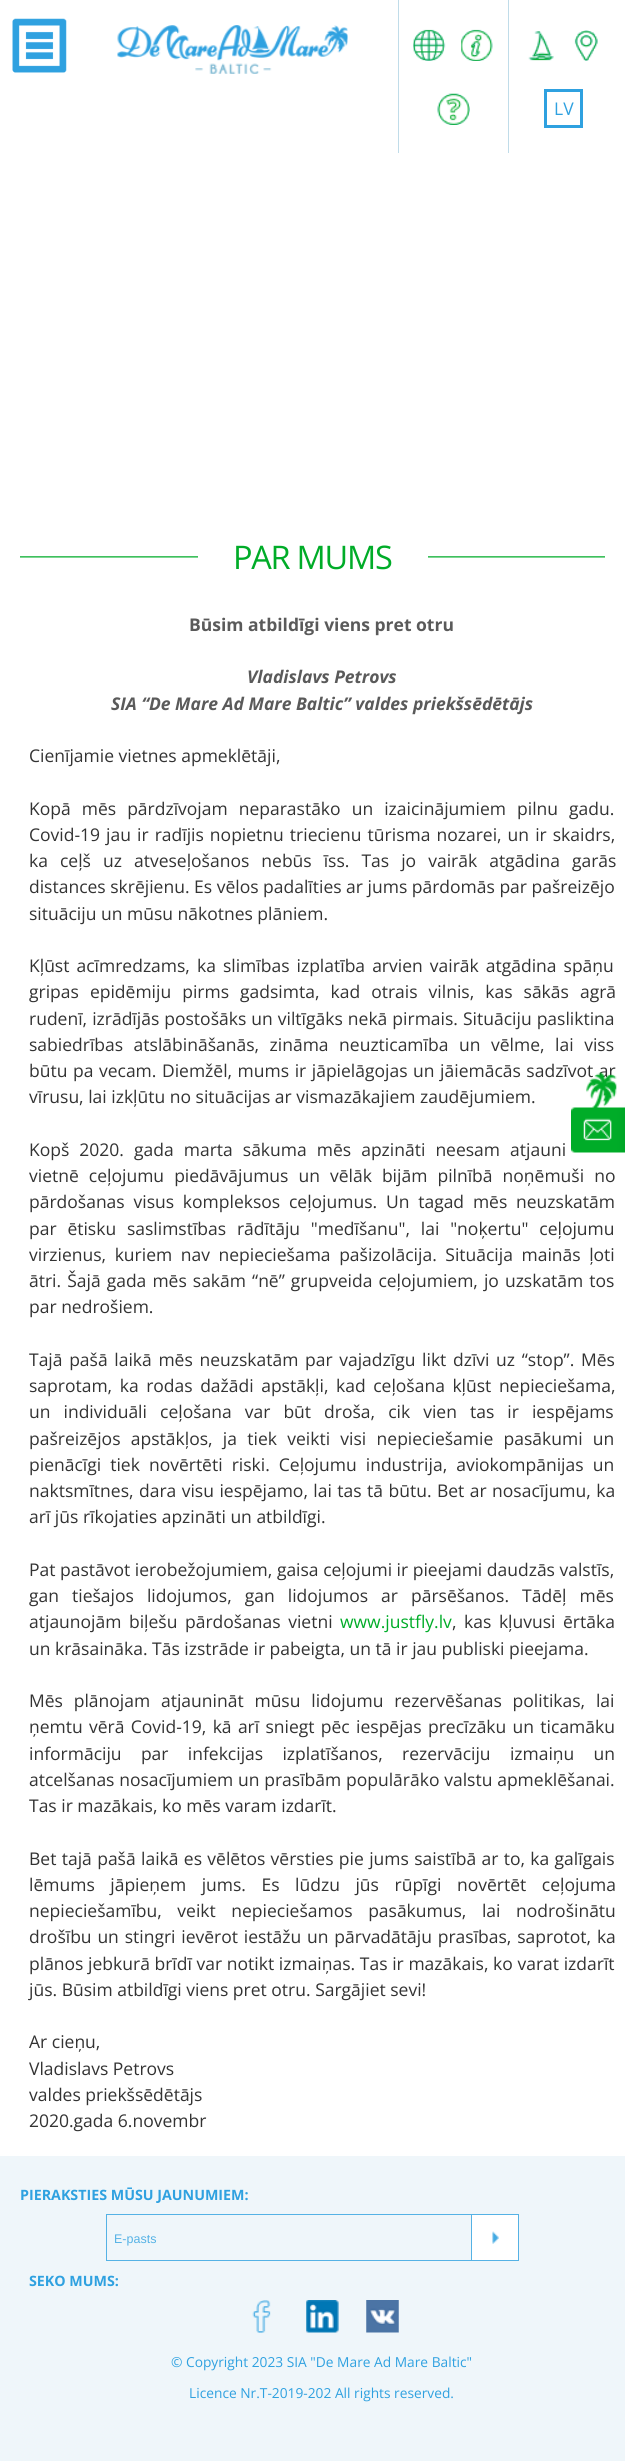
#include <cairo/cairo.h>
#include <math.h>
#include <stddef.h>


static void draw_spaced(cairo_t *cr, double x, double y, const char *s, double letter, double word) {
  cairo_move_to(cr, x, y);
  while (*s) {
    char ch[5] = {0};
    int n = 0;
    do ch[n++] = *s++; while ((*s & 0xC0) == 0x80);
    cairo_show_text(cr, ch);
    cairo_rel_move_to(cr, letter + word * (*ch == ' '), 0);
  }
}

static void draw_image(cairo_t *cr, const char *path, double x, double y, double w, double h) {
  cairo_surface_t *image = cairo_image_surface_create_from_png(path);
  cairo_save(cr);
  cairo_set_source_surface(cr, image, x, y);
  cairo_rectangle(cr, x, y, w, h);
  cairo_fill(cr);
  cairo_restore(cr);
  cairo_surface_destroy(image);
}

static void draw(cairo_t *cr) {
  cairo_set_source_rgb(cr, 1, 1, 1);
  cairo_paint(cr);
  draw_image(cr, "images/1.png", 117, 25, 231, 49);
  draw_image(cr, "images/2.png", 12, 18, 55, 55);
  cairo_set_source_rgb(cr, 192 / 255.0, 220 / 255.0, 233 / 255.0);
  cairo_rectangle(cr, 398, 0, 1, 153);
  cairo_fill(cr);
  draw_image(cr, "images/3.png", 413, 29, 33, 32);
  draw_image(cr, "images/4.png", 461, 29, 32, 32);
  draw_image(cr, "images/5.png", 437, 93, 33, 32);
  cairo_rectangle(cr, 508, 0, 1, 153);
  cairo_fill(cr);
  draw_image(cr, "images/6.png", 528, 31, 26, 30);
  draw_image(cr, "images/7.png", 574, 30, 24, 31);
  cairo_rectangle(cr, 545.5, 90.5, 36, 36);
  cairo_set_source_rgb(cr, 47 / 255.0, 161 / 255.0, 224 / 255.0);
  cairo_set_line_width(cr, 3);
  cairo_stroke(cr);
  draw_image(cr, "images/8.png", 20, 556, 585, 2);
  cairo_set_source_rgb(cr, 1, 1, 1);
  cairo_rectangle(cr, 198, 556, 230, 2);
  cairo_fill(cr);
  cairo_set_source_rgb(cr, 239 / 255.0, 246 / 255.0, 250 / 255.0);
  cairo_rectangle(cr, 0, 2156, 625, 305);
  cairo_fill(cr);
  cairo_rectangle(cr, 106.5, 2214.5, 366, 46);
  cairo_set_source_rgb(cr, 85 / 255.0, 178 / 255.0, 229 / 255.0);
  cairo_set_line_width(cr, 1);
  cairo_stroke(cr);
  cairo_set_source_rgb(cr, 1, 1, 1);
  cairo_rectangle(cr, 472, 2215, 46, 45);
  cairo_fill(cr);
  draw_image(cr, "images/10.png", 492, 2231, 7, 13);
  cairo_rectangle(cr, 471.5, 2214.5, 47, 46);
  cairo_set_source_rgb(cr, 85 / 255.0, 178 / 255.0, 229 / 255.0);
  cairo_stroke(cr);
  draw_image(cr, "images/11.png", 252, 2300, 19, 33);
  draw_image(cr, "images/12.png", 306, 2300, 33, 33);
  draw_image(cr, "images/13.png", 366, 2300, 33, 33);
  cairo_select_font_face(cr, "Open Sans", CAIRO_FONT_SLANT_NORMAL, CAIRO_FONT_WEIGHT_NORMAL);
  cairo_set_font_size(cr, 17.5);
  cairo_set_source_rgb(cr, 47 / 255.0, 161 / 255.0, 224 / 255.0);
  cairo_move_to(cr, 554, 115);
  cairo_show_text(cr, "LV");
  cairo_set_font_size(cr, 32.5);
  cairo_set_source_rgb(cr, 0, 172 / 255.0, 40 / 255.0);
  draw_spaced(cr, 233, 569, "PAR MUMS", -1.25, 0);
  cairo_select_font_face(cr, "Open Sans", CAIRO_FONT_SLANT_NORMAL, CAIRO_FONT_WEIGHT_BOLD);
  cairo_set_font_size(cr, 17.5);
  cairo_set_source_rgb(cr, 90 / 255.0, 90 / 255.0, 90 / 255.0);
  cairo_move_to(cr, 189, 631);
  cairo_show_text(cr, "Būsim atbildīgi viens pret otru");
  cairo_select_font_face(cr, "Open Sans", CAIRO_FONT_SLANT_ITALIC, CAIRO_FONT_WEIGHT_BOLD);
  cairo_move_to(cr, 247, 683);
  cairo_show_text(cr, "Vladislavs Petrovs");
  cairo_move_to(cr, 111, 710);
  cairo_show_text(cr, "SIA “De Mare Ad Mare Baltic” valdes priekšsēdētājs");
  cairo_select_font_face(cr, "Open Sans", CAIRO_FONT_SLANT_NORMAL, CAIRO_FONT_WEIGHT_NORMAL);
  cairo_set_source_rgb(cr, 51 / 255.0, 51 / 255.0, 51 / 255.0);
  cairo_move_to(cr, 29, 762);
  cairo_show_text(cr, "Cienījamie vietnes apmeklētāji,");
  draw_spaced(cr, 29, 815, "Kopā mēs pārdzīvojam neparastāko un izaicinājumiem pilnu gadu.", 0, 6.5);
  draw_spaced(cr, 29, 841, "Covid-19 jau ir radījis nopietnu triecienu tūrisma nozarei, un ir skaidrs,", 0, 1.5);
  draw_spaced(cr, 29, 867, "ka ceļš uz atveseļošanos nebūs īss. Tas jo vairāk atgādina garās", 0, 7.5);
  cairo_move_to(cr, 29, 893);
  cairo_show_text(cr, "distances skrējienu. Es vēlos padalīties ar jums pārdomās par pašreizējo");
  cairo_move_to(cr, 29, 920);
  cairo_show_text(cr, "situāciju un mūsu nākotnes plāniem.");
  draw_spaced(cr, 29, 972, "Kļūst acīmredzams, ka slimības izplatība arvien vairāk atgādina spāņu", 0, 2.5);
  draw_spaced(cr, 29, 998, "gripas epidēmiju pirms gadsimta, kad otrais vilnis, kas sākās agrā", 0, 6.5);
  draw_spaced(cr, 29, 1025, "rudenī, izrādījās postošāks un viltīgāks nekā pirmais. Situāciju pasliktina", 0, 0.5);
  draw_spaced(cr, 29, 1051, "sabiedrības atslābināšanās, zināma neuzticamība un vēlme, lai viss", 0, 6);
  draw_spaced(cr, 29, 1077, "būtu pa vecam. Diemžēl, mums ir jāpielāgojas un jāiemācās sadzīvot ar", 0, 1);
  cairo_move_to(cr, 29, 1103);
  cairo_show_text(cr, "vīrusu, lai izkļūtu no situācijas ar vismazākajiem zaudējumiem.");
  draw_spaced(cr, 29, 1156, "Kopš 2020. gada marta sākuma mēs apzināti neesam atjauni", 0, 5.5);
  draw_spaced(cr, 29, 1182, "vietnē ceļojumu piedāvājumus un vēlāk bijām pilnībā noņēmuši no", 0, 5.5);
  draw_spaced(cr, 29, 1208, "pārdošanas visus kompleksos ceļojumus. Un tagad mēs neuzskatām", 0, 4.25);
  draw_spaced(cr, 29, 1235, "par ētisku saslimstības rādītāju \"medīšanu\", lai \"noķertu\" ceļojumu", 0, 6.25);
  draw_spaced(cr, 29, 1261, "virzienus, kuriem nav nepieciešama pašizolācija. Situācija mainās ļoti", 0, 4);
  draw_spaced(cr, 29, 1287, "ātri. Šajā gada mēs sakām “nē” grupveida ceļojumiem, jo uzskatām tos", 0, 1.5);
  cairo_move_to(cr, 29, 1313);
  cairo_show_text(cr, "par nedrošiem.");
  draw_spaced(cr, 29, 1366, "Tajā pašā laikā mēs neuzskatām par vajadzīgu likt dzīvi uz “stop”. Mēs", 0, 2.1);
  draw_spaced(cr, 29, 1392, "saprotam, ka rodas dažādi apstākļi, kad ceļošana kļūst nepieciešama,", 0, 3);
  draw_spaced(cr, 29, 1418, "un individuāli ceļošana var būt droša, cik vien tas ir iespējams", 0, 8.5);
  draw_spaced(cr, 29, 1445, "pašreizējos apstākļos, ja tiek veikti visi nepieciešamie pasākumi un", 0, 5.75);
  draw_spaced(cr, 29, 1471, "pienācīgi tiek novērtēti riski. Ceļojumu industrija, aviokompānijas un", 0, 4.5);
  draw_spaced(cr, 29, 1497, "naktsmītnes, dara visu iespējamo, lai tas tā būtu. Bet ar nosacījumu, ka", 0, 0.9);
  cairo_move_to(cr, 29, 1523);
  cairo_show_text(cr, "arī jūs rīkojaties apzināti un atbildīgi.");
  cairo_move_to(cr, 29, 1576);
  cairo_show_text(cr, "Pat pastāvot ierobežojumiem, gaisa ceļojumi ir pieejami daudzās valstīs,");
  draw_spaced(cr, 29, 1602, "gan tiešajos lidojumos, gan lidojumos ar pārsēšanos. Tādēļ mēs", 0, 8.5);
  draw_spaced(cr, 29, 1628, "atjaunojām biļešu pārdošanas vietni", 0, 3);
  cairo_set_source_rgb(cr, 0, 172 / 255.0, 40 / 255.0);
  cairo_move_to(cr, 340, 1628);
  cairo_show_text(cr, "www.justfly.lv");
  cairo_set_source_rgb(cr, 51 / 255.0, 51 / 255.0, 51 / 255.0);
  draw_spaced(cr, 452, 1628, ", kas kļuvusi ērtāka", 0, 3);
  cairo_move_to(cr, 29, 1655);
  cairo_show_text(cr, "un krāsaināka. Tās izstrāde ir pabeigta, un tā ir jau publiski pieejama.");
  draw_spaced(cr, 29, 1707, "Mēs plānojam atjaunināt mūsu lidojumu rezervēšanas politikas, lai", 0, 6.25);
  draw_spaced(cr, 29, 1733, "ņemtu vērā Covid-19, kā arī sniegt pēc iespējas precīzāku un ticamāku", 0, 1.75);
  draw_spaced(cr, 29, 1760, "informāciju par infekcijas izplatīšanos, rezervāciju izmaiņu un", 0, 14.75);
  draw_spaced(cr, 29, 1786, "atcelšanas nosacījumiem un prasībām populārāko valstu apmeklēšanai.", 0, 0.25);
  cairo_move_to(cr, 29, 1812);
  cairo_show_text(cr, "Tas ir mazākais, ko mēs varam izdarīt.");
  draw_spaced(cr, 29, 1865, "Bet tajā pašā laikā es vēlētos vērsties pie jums saistībā ar to, ka galīgais", 0, 0.8);
  draw_spaced(cr, 29, 1891, "lēmums jāpieņem jums. Es lūdzu jūs rūpīgi novērtēt ceļojuma", 0, 11);
  draw_spaced(cr, 29, 1917, "nepieciešamību, veikt nepieciešamos pasākumus, lai nodrošinātu", 0, 11);
  draw_spaced(cr, 29, 1943, "drošību un stingri ievērot iestāžu un pārvadātāju prasības, saprotot, ka", 0, 1.25);
  draw_spaced(cr, 29, 1970, "plānos jebkurā brīdī var notikt izmaiņas. Tas ir mazākais, ko varat izdarīt", 0, 0.1);
  cairo_move_to(cr, 29, 1996);
  cairo_show_text(cr, "jūs. Būsim atbildīgi viens pret otru. Sargājiet sevi!");
  cairo_move_to(cr, 29, 2048);
  cairo_show_text(cr, "Ar cieņu,");
  cairo_move_to(cr, 29, 2075);
  cairo_show_text(cr, "Vladislavs Petrovs");
  cairo_move_to(cr, 29, 2101);
  cairo_show_text(cr, "valdes priekšsēdētājs");
  cairo_move_to(cr, 29, 2127);
  cairo_show_text(cr, "2020.gada 6.novembr");
  draw_image(cr, "images/9.png", 571, 1072, 54, 81);
  cairo_select_font_face(cr, "Open Sans", CAIRO_FONT_SLANT_NORMAL, CAIRO_FONT_WEIGHT_BOLD);
  cairo_set_font_size(cr, 14.25);
  cairo_set_source_rgb(cr, 47 / 255.0, 161 / 255.0, 224 / 255.0);
  cairo_move_to(cr, 20, 2200);
  cairo_show_text(cr, "PIERAKSTIES MŪSU JAUNUMIEM:");
  cairo_select_font_face(cr, "Liberation Sans", CAIRO_FONT_SLANT_NORMAL, CAIRO_FONT_WEIGHT_NORMAL);
  cairo_set_font_size(cr, 12.5);
  cairo_set_source_rgb(cr, 85 / 255.0, 178 / 255.0, 229 / 255.0);
  cairo_move_to(cr, 114, 2243);
  cairo_show_text(cr, "E-pasts");
  cairo_select_font_face(cr, "Open Sans", CAIRO_FONT_SLANT_NORMAL, CAIRO_FONT_WEIGHT_BOLD);
  cairo_set_font_size(cr, 14.25);
  cairo_set_source_rgb(cr, 47 / 255.0, 161 / 255.0, 224 / 255.0);
  cairo_move_to(cr, 29, 2286);
  cairo_show_text(cr, "SEKO MUMS:");
  cairo_select_font_face(cr, "Open Sans", CAIRO_FONT_SLANT_NORMAL, CAIRO_FONT_WEIGHT_NORMAL);
  cairo_set_font_size(cr, 13.75);
  cairo_move_to(cr, 171, 2367);
  cairo_show_text(cr, "© Copyright 2023 SIA \"De Mare Ad Mare Baltic\"");
  cairo_move_to(cr, 189, 2398);
  cairo_show_text(cr, "Licence Nr.T-2019-202 All rights reserved.");
}

int main(void) {
  cairo_surface_t *surface = cairo_image_surface_create(CAIRO_FORMAT_RGB24, 625, 2461);
  cairo_t *cr = cairo_create(surface);
  cairo_font_options_t *options = cairo_font_options_create();
  cairo_font_options_set_hint_metrics(options, CAIRO_HINT_METRICS_OFF);
  cairo_font_options_set_hint_style(options, CAIRO_HINT_STYLE_NONE);
  cairo_set_font_options(cr, options);
  cairo_set_miter_limit(cr, 4);
  draw(cr);
  cairo_surface_write_to_png(surface, "out.png");
  cairo_font_options_destroy(options);
  cairo_destroy(cr);
  cairo_surface_destroy(surface);
  return 0;
}
